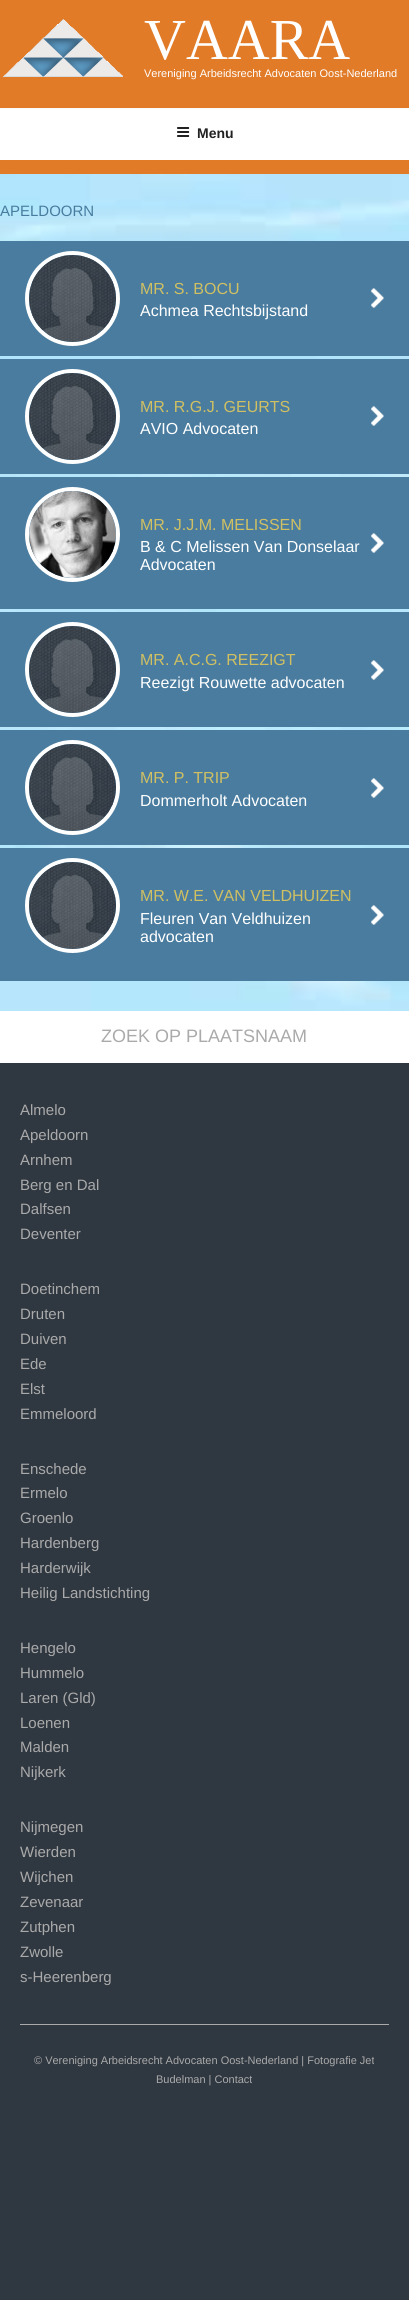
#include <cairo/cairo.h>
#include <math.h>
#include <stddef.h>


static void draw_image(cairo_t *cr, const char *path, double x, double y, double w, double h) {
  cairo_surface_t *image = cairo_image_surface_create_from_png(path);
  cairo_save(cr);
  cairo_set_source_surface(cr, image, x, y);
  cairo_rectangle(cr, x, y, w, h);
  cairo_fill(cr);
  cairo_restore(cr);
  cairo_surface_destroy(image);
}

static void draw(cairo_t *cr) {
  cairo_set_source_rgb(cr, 47 / 255.0, 55 / 255.0, 64 / 255.0);
  cairo_paint(cr);
  cairo_set_source_rgb(cr, 250 / 255.0, 250 / 255.0, 250 / 255.0);
  cairo_rectangle(cr, 0, 108, 409, 1);
  cairo_fill(cr);
  cairo_set_source_rgb(cr, 225 / 255.0, 123 / 255.0, 40 / 255.0);
  cairo_rectangle(cr, 0, 0, 409, 108);
  cairo_fill(cr);
  draw_image(cr, "images/1.png", 3, 19, 120, 58);
  cairo_set_source_rgb(cr, 1, 1, 1);
  cairo_rectangle(cr, 0, 109, 409, 51);
  cairo_fill(cr);
  cairo_set_source_rgb(cr, 225 / 255.0, 123 / 255.0, 40 / 255.0);
  cairo_rectangle(cr, 0, 160, 409, 14);
  cairo_fill(cr);
  draw_image(cr, "images/2.png", 177, 127, 13, 10);
  draw_image(cr, "images/3.png", 0, 174, 409, 837);
  cairo_set_source_rgb(cr, 73 / 255.0, 124 / 255.0, 159 / 255.0);
  cairo_rectangle(cr, 0, 241, 409, 115);
  cairo_fill(cr);
  cairo_arc(cr, 72.5, 298.5, 45.5, 0, 2 * M_PI);
  cairo_set_source_rgb(cr, 1, 1, 1);
  cairo_set_line_width(cr, 4);
  cairo_stroke(cr);
  draw_image(cr, "images/4.png", 29, 255, 87, 87);
  draw_image(cr, "images/5.png", 371, 288, 13, 20);
  cairo_set_source_rgb(cr, 73 / 255.0, 124 / 255.0, 159 / 255.0);
  cairo_rectangle(cr, 0, 359, 409, 115);
  cairo_fill(cr);
  cairo_arc(cr, 72.5, 416.5, 45.5, 0, 2 * M_PI);
  cairo_set_source_rgb(cr, 1, 1, 1);
  cairo_stroke(cr);
  draw_image(cr, "images/6.png", 29, 373, 87, 87);
  draw_image(cr, "images/5.png", 371, 406, 13, 20);
  cairo_set_source_rgb(cr, 73 / 255.0, 124 / 255.0, 159 / 255.0);
  cairo_rectangle(cr, 0, 477, 409, 132);
  cairo_fill(cr);
  cairo_arc(cr, 72.5, 534.5, 45.5, 0, 2 * M_PI);
  cairo_set_source_rgb(cr, 1, 1, 1);
  cairo_stroke(cr);
  draw_image(cr, "images/7.png", 29, 491, 87, 87);
  draw_image(cr, "images/5.png", 371, 533, 13, 20);
  cairo_set_source_rgb(cr, 73 / 255.0, 124 / 255.0, 159 / 255.0);
  cairo_rectangle(cr, 0, 612, 409, 115);
  cairo_fill(cr);
  cairo_arc(cr, 72.5, 669.5, 45.5, 0, 2 * M_PI);
  cairo_set_source_rgb(cr, 1, 1, 1);
  cairo_stroke(cr);
  draw_image(cr, "images/8.png", 29, 626, 87, 87);
  draw_image(cr, "images/5.png", 371, 660, 13, 20);
  cairo_set_source_rgb(cr, 73 / 255.0, 124 / 255.0, 159 / 255.0);
  cairo_rectangle(cr, 0, 730, 409, 115);
  cairo_fill(cr);
  cairo_arc(cr, 72.5, 787.5, 45.5, 0, 2 * M_PI);
  cairo_set_source_rgb(cr, 1, 1, 1);
  cairo_stroke(cr);
  draw_image(cr, "images/9.png", 29, 744, 87, 87);
  draw_image(cr, "images/5.png", 371, 778, 13, 20);
  cairo_set_source_rgb(cr, 73 / 255.0, 124 / 255.0, 159 / 255.0);
  cairo_rectangle(cr, 0, 848, 409, 133);
  cairo_fill(cr);
  cairo_arc(cr, 72.5, 905.5, 45.5, 0, 2 * M_PI);
  cairo_set_source_rgb(cr, 1, 1, 1);
  cairo_stroke(cr);
  draw_image(cr, "images/6.png", 29, 862, 87, 87);
  draw_image(cr, "images/5.png", 371, 905, 13, 20);
  cairo_rectangle(cr, 0, 1011, 409, 52);
  cairo_fill(cr);
  cairo_set_source_rgb(cr, 170 / 255.0, 170 / 255.0, 170 / 255.0);
  cairo_rectangle(cr, 20, 2024, 369, 1);
  cairo_fill(cr);
  cairo_select_font_face(cr, "Liberation Serif", CAIRO_FONT_SLANT_NORMAL, CAIRO_FONT_WEIGHT_NORMAL);
  cairo_set_font_size(cr, 58);
  cairo_set_source_rgb(cr, 1, 1, 1);
  cairo_move_to(cr, 144, 59);
  cairo_show_text(cr, "VAARA");
  cairo_select_font_face(cr, "Liberation Sans", CAIRO_FONT_SLANT_NORMAL, CAIRO_FONT_WEIGHT_NORMAL);
  cairo_set_font_size(cr, 11);
  cairo_move_to(cr, 144, 77);
  cairo_show_text(cr, "Vereniging Arbeidsrecht Advocaten Oost-Nederland");
  cairo_select_font_face(cr, "Liberation Sans", CAIRO_FONT_SLANT_NORMAL, CAIRO_FONT_WEIGHT_BOLD);
  cairo_set_font_size(cr, 14);
  cairo_set_source_rgb(cr, 34 / 255.0, 34 / 255.0, 34 / 255.0);
  cairo_move_to(cr, 197, 138);
  cairo_show_text(cr, "Menu");
  cairo_select_font_face(cr, "Liberation Sans", CAIRO_FONT_SLANT_NORMAL, CAIRO_FONT_WEIGHT_NORMAL);
  cairo_set_font_size(cr, 15);
  cairo_set_source_rgb(cr, 71 / 255.0, 124 / 255.0, 158 / 255.0);
  cairo_move_to(cr, 0, 216);
  cairo_show_text(cr, "APELDOORN");
  cairo_set_font_size(cr, 16);
  cairo_set_source_rgb(cr, 209 / 255.0, 192 / 255.0, 98 / 255.0);
  cairo_move_to(cr, 140, 294);
  cairo_show_text(cr, "MR. S. BOCU");
  cairo_set_source_rgb(cr, 1, 1, 1);
  cairo_move_to(cr, 140, 316);
  cairo_show_text(cr, "Achmea Rechtsbijstand");
  cairo_set_source_rgb(cr, 209 / 255.0, 192 / 255.0, 98 / 255.0);
  cairo_move_to(cr, 140, 412);
  cairo_show_text(cr, "MR. R.G.J. GEURTS");
  cairo_set_source_rgb(cr, 1, 1, 1);
  cairo_move_to(cr, 140, 434);
  cairo_show_text(cr, "AVIO Advocaten");
  cairo_set_source_rgb(cr, 209 / 255.0, 192 / 255.0, 98 / 255.0);
  cairo_move_to(cr, 140, 530);
  cairo_show_text(cr, "MR. J.J.M. MELISSEN");
  cairo_set_source_rgb(cr, 1, 1, 1);
  cairo_move_to(cr, 140, 552);
  cairo_show_text(cr, "B & C Melissen Van Donselaar");
  cairo_move_to(cr, 140, 570);
  cairo_show_text(cr, "Advocaten");
  cairo_set_source_rgb(cr, 209 / 255.0, 192 / 255.0, 98 / 255.0);
  cairo_move_to(cr, 140, 665);
  cairo_show_text(cr, "MR. A.C.G. REEZIGT");
  cairo_set_source_rgb(cr, 1, 1, 1);
  cairo_move_to(cr, 140, 688);
  cairo_show_text(cr, "Reezigt Rouwette advocaten");
  cairo_set_source_rgb(cr, 209 / 255.0, 192 / 255.0, 98 / 255.0);
  cairo_move_to(cr, 140, 783);
  cairo_show_text(cr, "MR. P. TRIP");
  cairo_set_source_rgb(cr, 1, 1, 1);
  cairo_move_to(cr, 140, 806);
  cairo_show_text(cr, "Dommerholt Advocaten");
  cairo_set_source_rgb(cr, 209 / 255.0, 192 / 255.0, 98 / 255.0);
  cairo_move_to(cr, 140, 901);
  cairo_show_text(cr, "MR. W.E. VAN VELDHUIZEN");
  cairo_set_source_rgb(cr, 1, 1, 1);
  cairo_move_to(cr, 140, 924);
  cairo_show_text(cr, "Fleuren Van Veldhuizen");
  cairo_move_to(cr, 140, 942);
  cairo_show_text(cr, "advocaten");
  cairo_set_font_size(cr, 18);
  cairo_set_source_rgb(cr, 170 / 255.0, 170 / 255.0, 170 / 255.0);
  cairo_move_to(cr, 101, 1042);
  cairo_show_text(cr, "ZOEK OP PLAATSNAAM");
  cairo_set_font_size(cr, 15);
  cairo_move_to(cr, 20, 1115);
  cairo_show_text(cr, "Almelo");
  cairo_move_to(cr, 20, 1140);
  cairo_show_text(cr, "Apeldoorn");
  cairo_move_to(cr, 20, 1165);
  cairo_show_text(cr, "Arnhem");
  cairo_move_to(cr, 20, 1190);
  cairo_show_text(cr, "Berg en Dal");
  cairo_move_to(cr, 20, 1214);
  cairo_show_text(cr, "Dalfsen");
  cairo_move_to(cr, 20, 1239);
  cairo_show_text(cr, "Deventer");
  cairo_move_to(cr, 20, 1294);
  cairo_show_text(cr, "Doetinchem");
  cairo_move_to(cr, 20, 1319);
  cairo_show_text(cr, "Druten");
  cairo_move_to(cr, 20, 1344);
  cairo_show_text(cr, "Duiven");
  cairo_move_to(cr, 20, 1369);
  cairo_show_text(cr, "Ede");
  cairo_move_to(cr, 20, 1394);
  cairo_show_text(cr, "Elst");
  cairo_move_to(cr, 20, 1419);
  cairo_show_text(cr, "Emmeloord");
  cairo_move_to(cr, 20, 1474);
  cairo_show_text(cr, "Enschede");
  cairo_move_to(cr, 20, 1498);
  cairo_show_text(cr, "Ermelo");
  cairo_move_to(cr, 20, 1523);
  cairo_show_text(cr, "Groenlo");
  cairo_move_to(cr, 20, 1548);
  cairo_show_text(cr, "Hardenberg");
  cairo_move_to(cr, 20, 1573);
  cairo_show_text(cr, "Harderwijk");
  cairo_move_to(cr, 20, 1598);
  cairo_show_text(cr, "Heilig Landstichting");
  cairo_move_to(cr, 20, 1653);
  cairo_show_text(cr, "Hengelo");
  cairo_move_to(cr, 20, 1678);
  cairo_show_text(cr, "Hummelo");
  cairo_move_to(cr, 20, 1703);
  cairo_show_text(cr, "Laren (Gld)");
  cairo_move_to(cr, 20, 1728);
  cairo_show_text(cr, "Loenen");
  cairo_move_to(cr, 20, 1752);
  cairo_show_text(cr, "Malden");
  cairo_move_to(cr, 20, 1777);
  cairo_show_text(cr, "Nijkerk");
  cairo_move_to(cr, 20, 1832);
  cairo_show_text(cr, "Nijmegen");
  cairo_move_to(cr, 20, 1857);
  cairo_show_text(cr, "Wierden");
  cairo_move_to(cr, 20, 1882);
  cairo_show_text(cr, "Wijchen");
  cairo_move_to(cr, 20, 1907);
  cairo_show_text(cr, "Zevenaar");
  cairo_move_to(cr, 20, 1932);
  cairo_show_text(cr, "Zutphen");
  cairo_move_to(cr, 20, 1957);
  cairo_show_text(cr, "Zwolle");
  cairo_move_to(cr, 20, 1982);
  cairo_show_text(cr, "s-Heerenberg");
  cairo_set_font_size(cr, 11);
  cairo_move_to(cr, 34, 2064);
  cairo_show_text(cr, "© Vereniging Arbeidsrecht Advocaten Oost-Nederland | Fotografie Jet");
  cairo_move_to(cr, 156, 2083);
  cairo_show_text(cr, "Budelman | Contact");
}

int main(void) {
  cairo_surface_t *surface = cairo_image_surface_create(CAIRO_FORMAT_RGB24, 409, 2300);
  cairo_t *cr = cairo_create(surface);
  cairo_font_options_t *options = cairo_font_options_create();
  cairo_font_options_set_hint_metrics(options, CAIRO_HINT_METRICS_OFF);
  cairo_font_options_set_hint_style(options, CAIRO_HINT_STYLE_NONE);
  cairo_set_font_options(cr, options);
  cairo_set_miter_limit(cr, 4);
  draw(cr);
  cairo_surface_write_to_png(surface, "out.png");
  cairo_font_options_destroy(options);
  cairo_destroy(cr);
  cairo_surface_destroy(surface);
  return 0;
}
